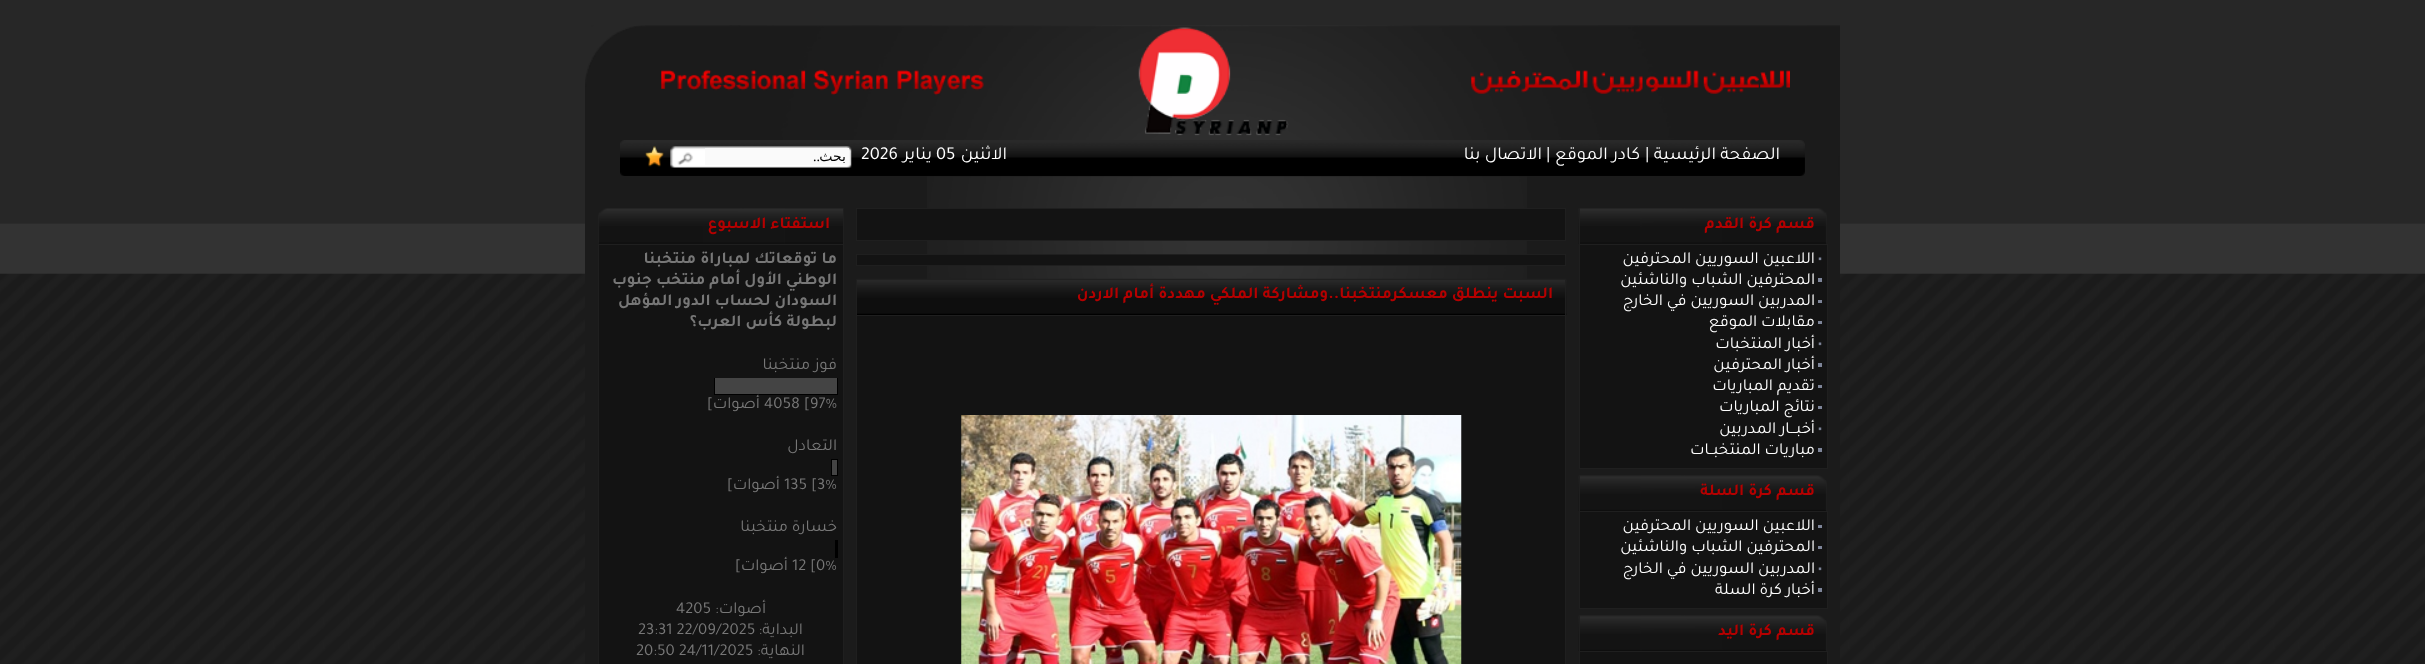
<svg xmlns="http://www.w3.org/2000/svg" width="2425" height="664">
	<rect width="100%" height="100%" fill="#FFFFFF" />
	<image x="0" y="273" width="2425" height="391" href="assets/img1.png" />
	<image x="0" y="0" width="2425" height="274" href="assets/img2.png" />
	<image x="585" y="25" width="1255" height="151" href="assets/img3.png" />
	<image x="1471" y="70" width="319" height="24" href="assets/img4.png" />
	<image x="1138" y="27" width="151" height="109" href="assets/img5.png" />
	<image x="661" y="69" width="323" height="27" href="assets/img6.png" />
	<image x="620" y="140" width="1185" height="36" href="assets/img7.png" />
	<text x="1780" y="159" font-family="Tajawal" font-size="18.25" direction="rtl" fill="#FFFFFF">الصفحة الرئيسية</text>
	<text x="1645" y="159" font-family="Tajawal" font-size="18.25" fill="#FFFFFF">|</text>
	<text x="1640" y="159" font-family="Tajawal" font-size="18.25" direction="rtl" fill="#FFFFFF">كادر الموقع</text>
	<text x="1546" y="159" font-family="Tajawal" font-size="18.25" fill="#FFFFFF">|</text>
	<g font-family="Tajawal" font-size="18.25" direction="rtl" fill="#FFFFFF">
		<text x="1542" y="159">الاتصال بنا</text>
		<text x="1007" y="159">الاثنين</text>
	</g>
	<text x="936" y="159" font-family="Tajawal" font-size="18.25" fill="#FFFFFF">05</text>
	<text x="932" y="159" font-family="Tajawal" font-size="18.25" direction="rtl" fill="#FFFFFF">يناير</text>
	<text x="861" y="159" font-family="Tajawal" font-size="18.25" fill="#FFFFFF">2026</text>
	<image x="670" y="146" width="182" height="22" href="assets/img8.png" />
	<rect x="705" y="148" width="144" height="17" fill="#FAFAFA" />
	<text x="846" y="161" font-family="DejaVu Sans" font-size="14" direction="rtl" fill="#000000">بحث</text>
	<text x="820" y="161" font-family="Liberation Serif" font-size="14" direction="rtl" fill="#000000">..</text>
	<image x="645" y="146" width="19" height="21" href="assets/img9.png" />
	<rect x="585" y="176" width="1255" height="488" fill="#1B1B1B" />
	<image x="927" y="176" width="600" height="103" href="assets/img10.png" />
	<image x="1578" y="208" width="249" height="36" href="assets/img11.png" />
	<rect x="1579" y="208" width="1" height="36" fill="#1F1F1F" />
	<text x="1815" y="228" font-family="Tajawal" font-size="16.7" font-weight="700" direction="rtl" fill="#B50000">قسم كرة القدم</text>
	<rect x="1579.5" y="244.5" width="248" height="224" fill="#131313" stroke="#1F1F1F" />
	<image x="1818" y="257" width="4" height="4" href="assets/img12.png" />
	<text x="1815" y="263" font-family="Tajawal" font-size="16.7" direction="rtl" fill="#FFFFFF">اللاعبين السوريين المحترفين</text>
	<rect x="1818" y="278" width="4" height="4" fill="#7E8599" />
	<text x="1815" y="284" font-family="Tajawal" font-size="16.7" direction="rtl" fill="#FFFFFF">المحترفين الشباب والناشئين</text>
	<rect x="1818" y="300" width="4" height="3" fill="#7E8599" />
	<text x="1815" y="305" font-family="Tajawal" font-size="16.7" direction="rtl" fill="#FFFFFF">المدربين السوريين في الخارج</text>
	<rect x="1818" y="321" width="4" height="3" fill="#7E8599" />
	<text x="1815" y="326" font-family="Tajawal" font-size="16.7" direction="rtl" fill="#FFFFFF">مقابلات الموقع</text>
	<image x="1818" y="342" width="4" height="4" href="assets/img12.png" />
	<text x="1815" y="348" font-family="Tajawal" font-size="16.7" direction="rtl" fill="#FFFFFF">أخبار المنتخبات</text>
	<rect x="1818" y="363" width="4" height="4" fill="#7E8599" />
	<text x="1815" y="369" font-family="Tajawal" font-size="16.7" direction="rtl" fill="#FFFFFF">أخبار المحترفين</text>
	<rect x="1818" y="385" width="4" height="3" fill="#7E8599" />
	<text x="1815" y="390" font-family="Tajawal" font-size="16.7" direction="rtl" fill="#FFFFFF">تقديم المباريات</text>
	<rect x="1818" y="406" width="4" height="3" fill="#7E8599" />
	<text x="1815" y="411" font-family="Tajawal" font-size="16.7" direction="rtl" fill="#FFFFFF">نتائج المباريات</text>
	<image x="1818" y="427" width="4" height="4" href="assets/img12.png" />
	<text x="1815" y="433" font-family="Tajawal" font-size="16.7" direction="rtl" fill="#FFFFFF">أخبـــار المدربين</text>
	<rect x="1818" y="448" width="4" height="4" fill="#7E8599" />
	<text x="1815" y="454" font-family="Tajawal" font-size="16.7" direction="rtl" fill="#FFFFFF">مباريات المنتخبــات</text>
	<image x="1578" y="475" width="249" height="36" href="assets/img13.png" />
	<rect x="1579" y="475" width="1" height="36" fill="#1F1F1F" />
	<text x="1815" y="495" font-family="Tajawal" font-size="16.7" font-weight="700" direction="rtl" fill="#B50000">قسم كرة السلة</text>
	<rect x="1579.5" y="511.5" width="248" height="97" fill="#131313" stroke="#1F1F1F" />
	<rect x="1818" y="525" width="4" height="3" fill="#7E8599" />
	<text x="1815" y="530" font-family="Tajawal" font-size="16.7" direction="rtl" fill="#FFFFFF">اللاعبين السوريين المحترفين</text>
	<rect x="1818" y="546" width="4" height="3" fill="#7E8599" />
	<text x="1815" y="551" font-family="Tajawal" font-size="16.7" direction="rtl" fill="#FFFFFF">المحترفين الشباب والناشئين</text>
	<image x="1818" y="567" width="4" height="4" href="assets/img12.png" />
	<text x="1815" y="573" font-family="Tajawal" font-size="16.7" direction="rtl" fill="#FFFFFF">المدربين السوريين في الخارج</text>
	<rect x="1818" y="588" width="4" height="4" fill="#7E8599" />
	<text x="1815" y="594" font-family="Tajawal" font-size="16.7" direction="rtl" fill="#FFFFFF">أخبار كرة السلة</text>
	<image x="1578" y="615" width="249" height="36" href="assets/img13.png" />
	<rect x="1579" y="615" width="1" height="36" fill="#1F1F1F" />
	<text x="1815" y="635" font-family="Tajawal" font-size="16.7" font-weight="700" direction="rtl" fill="#B50000">قسم كرة اليد</text>
	<rect x="1579.5" y="651.5" width="248" height="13" fill="#131313" stroke="#1F1F1F" />
	<rect x="856.5" y="208.5" width="709" height="32" fill="#131313" stroke="#1F1F1F" />
	<rect x="856.5" y="254.5" width="709" height="11" fill="#131313" stroke="#1F1F1F" />
	<image x="856" y="278" width="711" height="37" href="assets/img14.png" />
	<rect x="1565" y="279" width="1" height="36" fill="#1F1F1F" />
	<rect x="856" y="279" width="1" height="36" fill="#1F1F1F" />
	<text x="1553" y="298" font-family="Tajawal" font-size="16.7" font-weight="700" direction="rtl" fill="#B50000">السبت ينطلق معسكرمنتخبنا..ومشاركة الملكي مهددة أمام الاردن</text>
	<rect x="856.5" y="315.5" width="709" height="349" fill="#131313" stroke="#1F1F1F" />
	<image x="961" y="415" width="501" height="249" href="assets/img15.png" />
	<image x="598" y="208" width="245" height="36" href="assets/img16.png" />
	<rect x="843" y="208" width="1" height="36" fill="#1F1F1F" />
	<text x="830" y="228" font-family="Tajawal" font-size="16.7" font-weight="700" direction="rtl" fill="#B50000">استفتاء الاسبوع</text>
	<rect x="598.5" y="244.5" width="245" height="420" fill="#131313" stroke="#1F1F1F" />
	<g font-family="Tajawal" font-size="16.7" font-weight="700" direction="rtl" fill="#777777">
		<text x="837" y="263">ما توقعاتك لمباراة منتخبنا</text>
		<text x="837" y="284">الوطني الأول أمام منتخب جنوب</text>
		<text x="837" y="305">السودان لحساب الدور المؤهل</text>
		<text x="837" y="326">لبطولة كأس العرب؟</text>
	</g>
	<text x="837" y="369" font-family="Tajawal" font-size="16.7" direction="rtl" fill="#777777">فوز منتخبنا</text>
	<rect x="714.5" y="378.5" width="123" height="16" fill="none" stroke="#000000" />
	<rect x="715" y="378" width="122" height="16" fill="#444444" />
	<text x="764" y="408" font-family="Tajawal" font-size="16.7" fill="#777777">4058 [97%</text>
	<g font-family="Tajawal" font-size="16.7" direction="rtl" fill="#777777">
		<text x="760" y="408">أصوات]</text>
		<text x="837" y="450">التعادل</text>
	</g>
	<rect x="831.5" y="459.5" width="6" height="16" fill="none" stroke="#000000" />
	<rect x="832" y="460" width="5" height="15" fill="#444444" />
	<text x="784" y="489" font-family="Tajawal" font-size="16.7" fill="#777777">135 [3%</text>
	<g font-family="Tajawal" font-size="16.7" direction="rtl" fill="#777777">
		<text x="780" y="489">أصوات]</text>
		<text x="837" y="531">خسارة منتخبنا</text>
	</g>
	<rect x="835" y="540" width="3" height="18" fill="#000000" />
	<text x="792" y="570" font-family="Tajawal" font-size="16.7" fill="#777777">12 [0%</text>
	<g font-family="Tajawal" font-size="16.7" direction="rtl" fill="#777777">
		<text x="788" y="570">أصوات]</text>
		<text x="766" y="613">أصوات:</text>
	</g>
	<text x="676" y="613" font-family="Tajawal" font-size="16.7" fill="#777777">4205</text>
	<text x="803" y="634" font-family="Tajawal" font-size="16.7" direction="rtl" fill="#777777">البداية:</text>
	<text x="638" y="634" font-family="Tajawal" font-size="16.7" fill="#777777">23:31 22/09/2025</text>
	<text x="805" y="655" font-family="Tajawal" font-size="16.7" direction="rtl" fill="#777777">النهاية:</text>
	<text x="636" y="655" font-family="Tajawal" font-size="16.7" fill="#777777">20:50 24/11/2025</text>
</svg>
